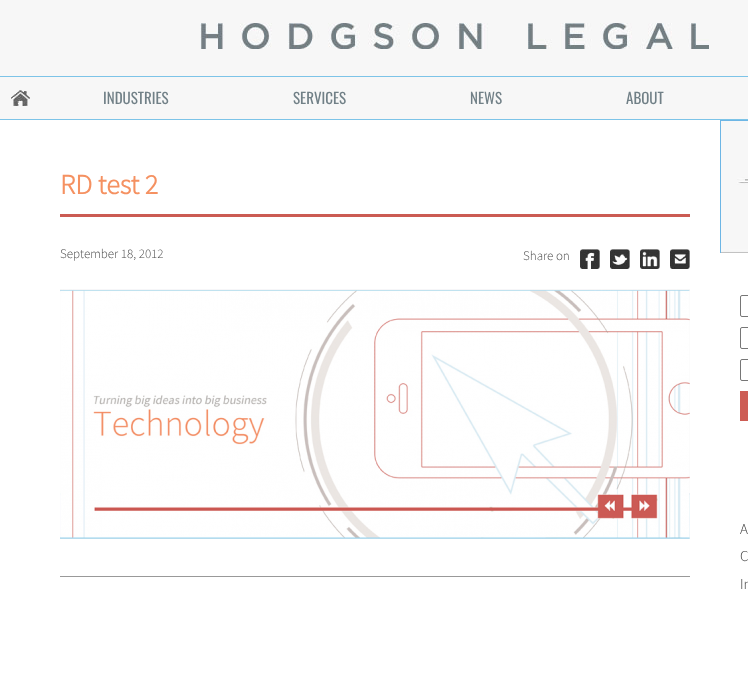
<svg xmlns="http://www.w3.org/2000/svg" width="748" height="679">
	<rect width="100%" height="100%" fill="#FFFFFF" />
	<image x="0" y="0" width="748" height="119" href="assets/img1.png" />
	<image x="200" y="23" width="509" height="26" href="assets/img2.png" />
	<rect x="0" y="76" width="748" height="1" fill="#7DC4E8" />
	<rect x="0" y="119" width="748" height="1" fill="#7DC4E8" />
	<image x="11" y="90" width="19" height="16" href="assets/img3.png" />
	<g font-family="Oswald" font-size="15" fill="#718087">
		<text x="103" y="104">INDUSTRIES</text>
		<text x="293" y="104">SERVICES</text>
		<text x="470" y="104">NEWS</text>
		<text x="626" y="104">ABOUT</text>
	</g>
	<rect x="60" y="576" width="630" height="1" fill="#999999" />
	<rect x="60" y="214" width="630" height="3" fill="#CB5B53" />
	<text x="60" y="194" font-family="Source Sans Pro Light" font-size="28" font-weight="700" fill="#F59161">RD test 2</text>
	<g font-family="Source Sans Pro Light" font-size="13" font-weight="300" fill="#484848">
		<text x="60" y="258">September 18, 2012</text>
		<text x="523" y="260">Share on</text>
	</g>
	<image x="580" y="249" width="20" height="20" href="assets/img4.png" />
	<image x="610" y="249" width="20" height="20" href="assets/img5.png" />
	<image x="640" y="249" width="20" height="20" href="assets/img6.png" />
	<image x="670" y="249" width="20" height="20" href="assets/img7.png" />
	<image x="60" y="289" width="630" height="250" href="assets/img8.png" />
	<image x="721" y="121" width="27" height="132" href="assets/img9.png" />
	<rect x="720" y="120" width="28" height="1" fill="#6DB6E5" />
	<rect x="720" y="120" width="1" height="133" fill="#6DB6E5" />
	<image x="745" y="179" width="3" height="2" href="assets/img10.png" />
	<rect x="740.5" y="295.5" width="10" height="21" rx="1.5" fill="none" stroke="#767676" />
	<rect x="740.5" y="327.5" width="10" height="21" rx="1.5" fill="none" stroke="#767676" />
	<rect x="740.5" y="359.5" width="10" height="21" rx="1.5" fill="none" stroke="#767676" />
	<rect x="740" y="391" width="8" height="30" fill="#CD5C54" />
	<g font-family="Source Sans Pro Light" font-size="15" font-weight="300" fill="#333333">
		<text x="740" y="534">A</text>
		<text x="740" y="561">C</text>
		<text x="740" y="589">In</text>
	</g>
</svg>
